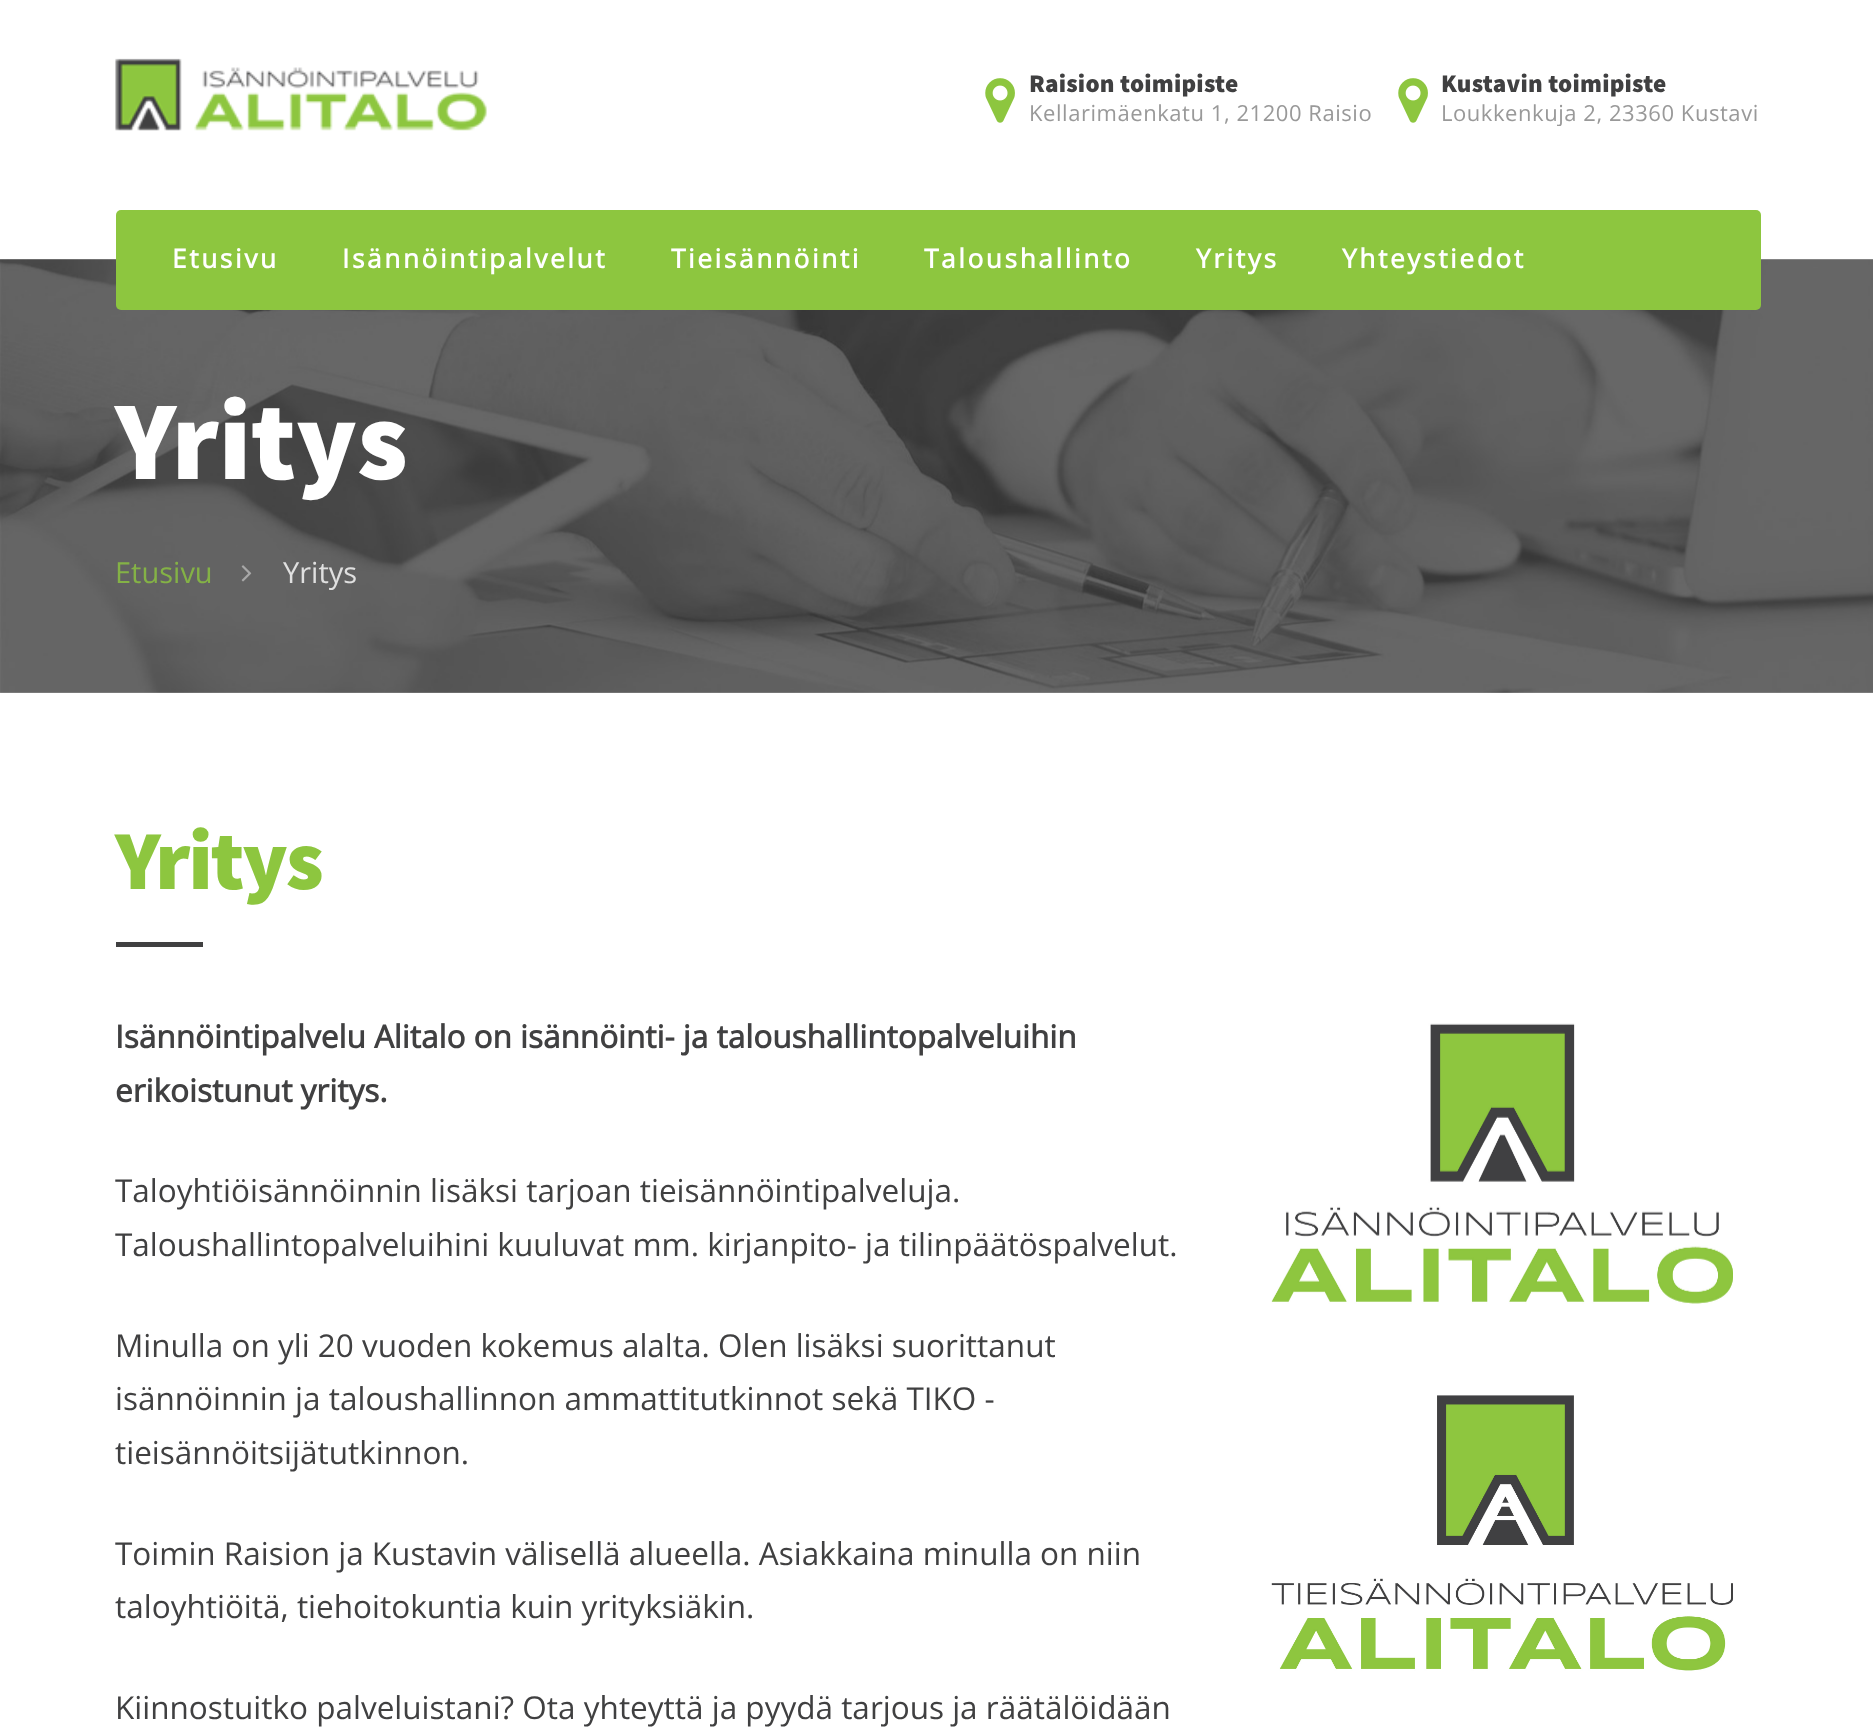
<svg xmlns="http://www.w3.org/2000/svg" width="1873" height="1728">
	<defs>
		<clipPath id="clip1"><rect x="1442" y="67" width="319" height="59" /></clipPath>
	</defs>
	<rect width="100%" height="100%" fill="#FFFFFF" />
	<image x="115" y="58" width="372" height="73" href="assets/img1.png" />
	<image x="985" y="78" width="30" height="45" href="assets/img2.png" />
	<text x="1029" y="92" font-family="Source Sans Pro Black" font-size="25.25" font-weight="900" letter-spacing="0.25" fill="#404041">Raision toimipiste</text>
	<text x="1029" y="121" font-family="Open Sans" font-size="22" letter-spacing="0.55" fill="#999999">Kellarimäenkatu 1, 21200 Raisio</text>
	<image x="1398" y="78" width="30" height="45" href="assets/img2.png" />
	<text x="1441" y="92" font-family="Source Sans Pro Black" font-size="25.25" font-weight="900" letter-spacing="0.25" fill="#404041">Kustavin toimipiste</text>
	<g clip-path="url(#clip1)">
		<text x="1441" y="121" font-family="Open Sans" font-size="22" letter-spacing="0.55" fill="#999999">Loukkenkuja 2, 23360 Kustavi</text>
	</g>
	<image x="0" y="259" width="1873" height="434" href="assets/img3.png" />
	<rect x="116" y="210" width="1645" height="100" rx="5" fill="#8DC63F" />
	<g font-family="Open Sans" font-size="26.25" font-weight="700" letter-spacing="2.6" fill="#FFFFFF">
		<text x="172" y="268">Etusivu</text>
		<text x="342" y="268">Isännöintipalvelut</text>
		<text x="671" y="268">Tieisännöinti</text>
		<text x="924" y="268">Taloushallinto</text>
		<text x="1196" y="268">Yritys</text>
		<text x="1342" y="268">Yhteystiedot</text>
	</g>
	<text x="115" y="479" font-family="Source Sans Pro Black" font-size="112.5" font-weight="900" fill="#FFFFFF">Yritys</text>
	<text x="115" y="583" font-family="Open Sans" font-size="29" fill="#84B246">Etusivu</text>
	<image x="241" y="565" width="11" height="17" href="assets/img4.png" />
	<text x="283" y="583" font-family="Open Sans" font-size="29" fill="#E0E0E0">Yritys</text>
	<text x="115" y="889" font-family="Source Sans Pro Black" font-size="84" font-weight="900" letter-spacing="-2" fill="#8DC63F">Yritys</text>
	<rect x="116" y="942" width="87" height="5" fill="#404041" />
	<g font-family="Open Sans" font-size="31.5" font-weight="700" fill="#404041">
		<text x="115" y="1048">Isännöintipalvelu Alitalo on isännöinti- ja taloushallintopalveluihin</text>
		<text x="115" y="1102">erikoistunut yritys.</text>
	</g>
	<g font-family="Open Sans" font-size="31.5" fill="#404041">
		<text x="115" y="1202">Taloyhtiöisännöinnin lisäksi tarjoan tieisännöintipalveluja.</text>
		<text x="115" y="1256">Taloushallintopalveluihini kuuluvat mm. kirjanpito- ja tilinpäätöspalvelut.</text>
		<text x="115" y="1357">Minulla on yli 20 vuoden kokemus alalta. Olen lisäksi suorittanut</text>
		<text x="115" y="1410">isännöinnin ja taloushallinnon ammattitutkinnot sekä TIKO -</text>
		<text x="115" y="1464">tieisännöitsijätutkinnon.</text>
		<text x="115" y="1565">Toimin Raision ja Kustavin välisellä alueella. Asiakkaina minulla on niin</text>
		<text x="115" y="1618">taloyhtiöitä, tiehoitokuntia kuin yrityksiäkin.</text>
		<text x="115" y="1719">Kiinnostuitko palveluistani? Ota yhteyttä ja pyydä tarjous ja räätälöidään</text>
	</g>
	<image x="1271" y="1023" width="462" height="281" href="assets/img5.png" />
	<image x="1271" y="1395" width="462" height="276" href="assets/img6.png" />
</svg>
